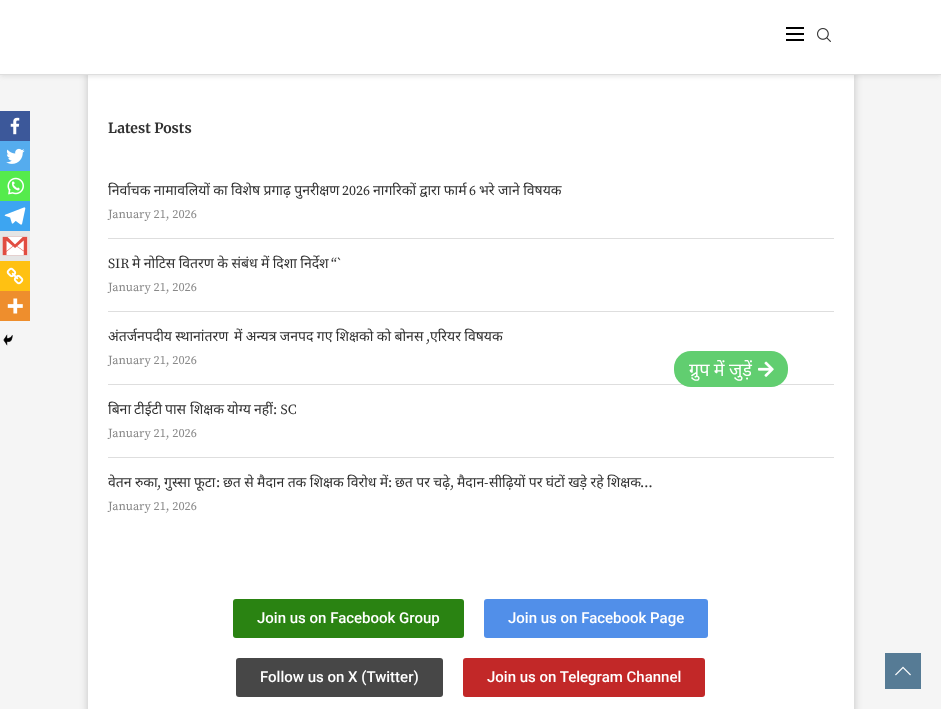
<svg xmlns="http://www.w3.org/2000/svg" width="941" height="709">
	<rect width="100%" height="100%" fill="#F5F5F5" />
	<rect x="88" y="-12" width="766" height="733" fill="#000000" fill-opacity="0.2" filter="blur(4px)" />
	<rect x="88" y="75" width="766" height="634" fill="#FFFFFF" />
	<rect x="0" y="1" width="941" height="75" fill="#BEBEBE" fill-opacity="0.46" filter="blur(2.5px)" />
	<rect x="0" y="0" width="941" height="74" fill="#FFFFFF" />
	<rect x="0" y="74" width="941" height="1" fill="#DEDEDE" />
	<rect x="786" y="27" width="18" height="2" fill="#000000" />
	<rect x="786" y="33" width="18" height="2" fill="#000000" />
	<rect x="786" y="39" width="18" height="2" fill="#000000" />
	<image x="817" y="28" width="14" height="14" href="assets/img1.png" />
	<rect x="0" y="111" width="30" height="30" fill="#3C589A" />
	<image x="10" y="117" width="10" height="18" href="assets/img2.png" />
	<rect x="0" y="141" width="30" height="30" fill="#55ACEE" />
	<image x="6" y="148" width="19" height="16" href="assets/img3.png" />
	<rect x="0" y="171" width="30" height="30" fill="#55EB4C" />
	<image x="7" y="177" width="17" height="18" href="assets/img4.png" />
	<rect x="0" y="201" width="30" height="30" fill="#3DA5F1" />
	<image x="4" y="207" width="22" height="18" href="assets/img5.png" />
	<rect x="0" y="231" width="30" height="30" fill="#E5E5E5" />
	<image x="2" y="236" width="26" height="20" href="assets/img6.png" />
	<rect x="0" y="261" width="30" height="30" fill="#FFC112" />
	<image x="6" y="267" width="18" height="18" href="assets/img7.png" />
	<rect x="0" y="291" width="30" height="30" fill="#EE8E2D" />
	<image x="7" y="298" width="16" height="16" href="assets/img8.png" />
	<image x="3" y="334" width="10" height="12" href="assets/img9.png" />
	<text x="108" y="133" font-family="Merriweather" font-size="14" font-weight="700" fill="#313131">Latest Posts</text>
	<rect x="108" y="238" width="726" height="1" fill="#DEDEDE" />
	<text x="108" y="195" word-spacing="-0.25" font-family="Noto Sans" font-size="14" fill="#313131">निर्वाचक नामावलियों का विशेष प्रगाढ़ पुनरीक्षण</text>
	<text x="342" y="195" font-family="Source Serif Pro" font-size="14" fill="#313131">2026</text>
	<text x="373" y="195" word-spacing="-0.25" font-family="Noto Sans" font-size="14" fill="#313131">नागरिकों द्वारा फार्म</text>
	<text x="469" y="195" font-family="Source Serif Pro" font-size="14" fill="#313131">6</text>
	<text x="479" y="195" word-spacing="-0.25" font-family="Noto Sans" font-size="14" fill="#313131">भरे जाने विषयक</text>
	<text x="108" y="218" font-family="Source Serif Pro" font-size="12.25" fill="#888888">January 21, 2026</text>
	<rect x="108" y="311" width="726" height="1" fill="#DEDEDE" />
	<text x="108" y="268" font-family="Source Serif Pro" font-size="14" fill="#313131">SIR</text>
	<text x="132" y="268" word-spacing="-0.25" font-family="Noto Sans" font-size="14" fill="#313131">मे नोटिस वितरण के संबंध में दिशा निर्देश</text>
	<text x="331" y="268" font-family="Source Serif Pro" font-size="14" fill="#313131">“`</text>
	<text x="108" y="291" font-family="Source Serif Pro" font-size="12.25" fill="#888888">January 21, 2026</text>
	<rect x="108" y="384" width="726" height="1" fill="#DEDEDE" />
	<g font-family="Noto Sans" font-size="14" fill="#313131">
		<text x="108" y="341" word-spacing="-0.25">अंतर्जनपदीय स्थानांतरण</text>
		<text x="234" y="341" word-spacing="-0.25">में अन्यत्र जनपद गए शिक्षको को बोनस</text>
	</g>
	<text x="426" y="341" font-family="Source Serif Pro" font-size="14" fill="#313131">,</text>
	<text x="430" y="341" word-spacing="-0.25" font-family="Noto Sans" font-size="14" fill="#313131">एरियर विषयक</text>
	<text x="108" y="364" font-family="Source Serif Pro" font-size="12.25" fill="#888888">January 21, 2026</text>
	<rect x="108" y="457" width="726" height="1" fill="#DEDEDE" />
	<g font-family="Noto Sans" font-size="14" fill="#313131">
		<text x="108" y="414">बिना</text>
		<text x="134" y="414">टीईटी</text>
		<text x="165" y="414">पास</text>
		<text x="190" y="414">शिक्षक</text>
		<text x="227" y="414">योग्य</text>
		<text x="254" y="414">नहीं</text>
	</g>
	<text x="273" y="414" font-family="Source Serif Pro" font-size="14" fill="#313131">: SC</text>
	<text x="108" y="437" font-family="Source Serif Pro" font-size="12.25" fill="#888888">January 21, 2026</text>
	<text x="108" y="487" word-spacing="-0.25" font-family="Noto Sans" font-size="14" fill="#313131">वेतन रुका</text>
	<text x="157" y="487" font-family="Source Serif Pro" font-size="14" fill="#313131">,</text>
	<text x="164" y="487" word-spacing="-0.25" font-family="Noto Sans" font-size="14" fill="#313131">गुस्सा फूटा</text>
	<text x="216" y="487" font-family="Source Serif Pro" font-size="14" fill="#313131">:</text>
	<text x="223" y="487" word-spacing="-0.25" font-family="Noto Sans" font-size="14" fill="#313131">छत से मैदान तक शिक्षक विरोध में</text>
	<text x="388" y="487" font-family="Source Serif Pro" font-size="14" fill="#313131">:</text>
	<text x="395" y="487" word-spacing="-0.25" font-family="Noto Sans" font-size="14" fill="#313131">छत पर चढ़े</text>
	<text x="450" y="487" font-family="Source Serif Pro" font-size="14" fill="#313131">,</text>
	<text x="457" y="487" font-family="Noto Sans" font-size="14" fill="#313131">मैदान</text>
	<text x="484" y="487" font-family="Source Serif Pro" font-size="14" fill="#313131">-</text>
	<text x="489" y="487" word-spacing="-0.25" font-family="Noto Sans" font-size="14" fill="#313131">सीढ़ियों पर घंटों खड़े रहे शिक्षक</text>
	<text x="640" y="487" font-family="Source Serif Pro" font-size="14" fill="#313131">…</text>
	<text x="108" y="510" font-family="Source Serif Pro" font-size="12.25" fill="#888888">January 21, 2026</text>
	<rect x="674" y="351" width="114" height="36" rx="17" fill="#61CE70" />
	<text x="689" y="376" word-spacing="-0.25" font-family="Noto Sans" font-size="18" fill="#FFFFFF">ग्रुप में जुड़ें</text>
	<image x="758" y="361" width="16" height="16" href="assets/img10.png" />
	<rect x="233" y="599" width="231" height="39" rx="3" fill="#2A8312" />
	<text x="257" y="623" font-family="Roboto" font-size="15" font-weight="500" fill="#FFFFFF">Join us on Facebook Group</text>
	<rect x="484" y="599" width="224" height="39" rx="3" fill="#518FE9" />
	<text x="508" y="623" font-family="Roboto" font-size="15" font-weight="500" fill="#FFFFFF">Join us on Facebook Page</text>
	<rect x="236" y="658" width="207" height="39" rx="3" fill="#474747" />
	<text x="260" y="682" font-family="Roboto" font-size="15" font-weight="500" fill="#FFFFFF">Follow us on X (Twitter)</text>
	<rect x="463" y="658" width="242" height="39" rx="3" fill="#C22828" />
	<text x="487" y="682" font-family="Roboto" font-size="15" font-weight="500" fill="#FFFFFF">Join us on Telegram Channel</text>
	<rect x="885" y="653" width="36" height="36" fill="#567B95" />
	<image x="895" y="666" width="16" height="10" href="assets/img11.png" />
</svg>
